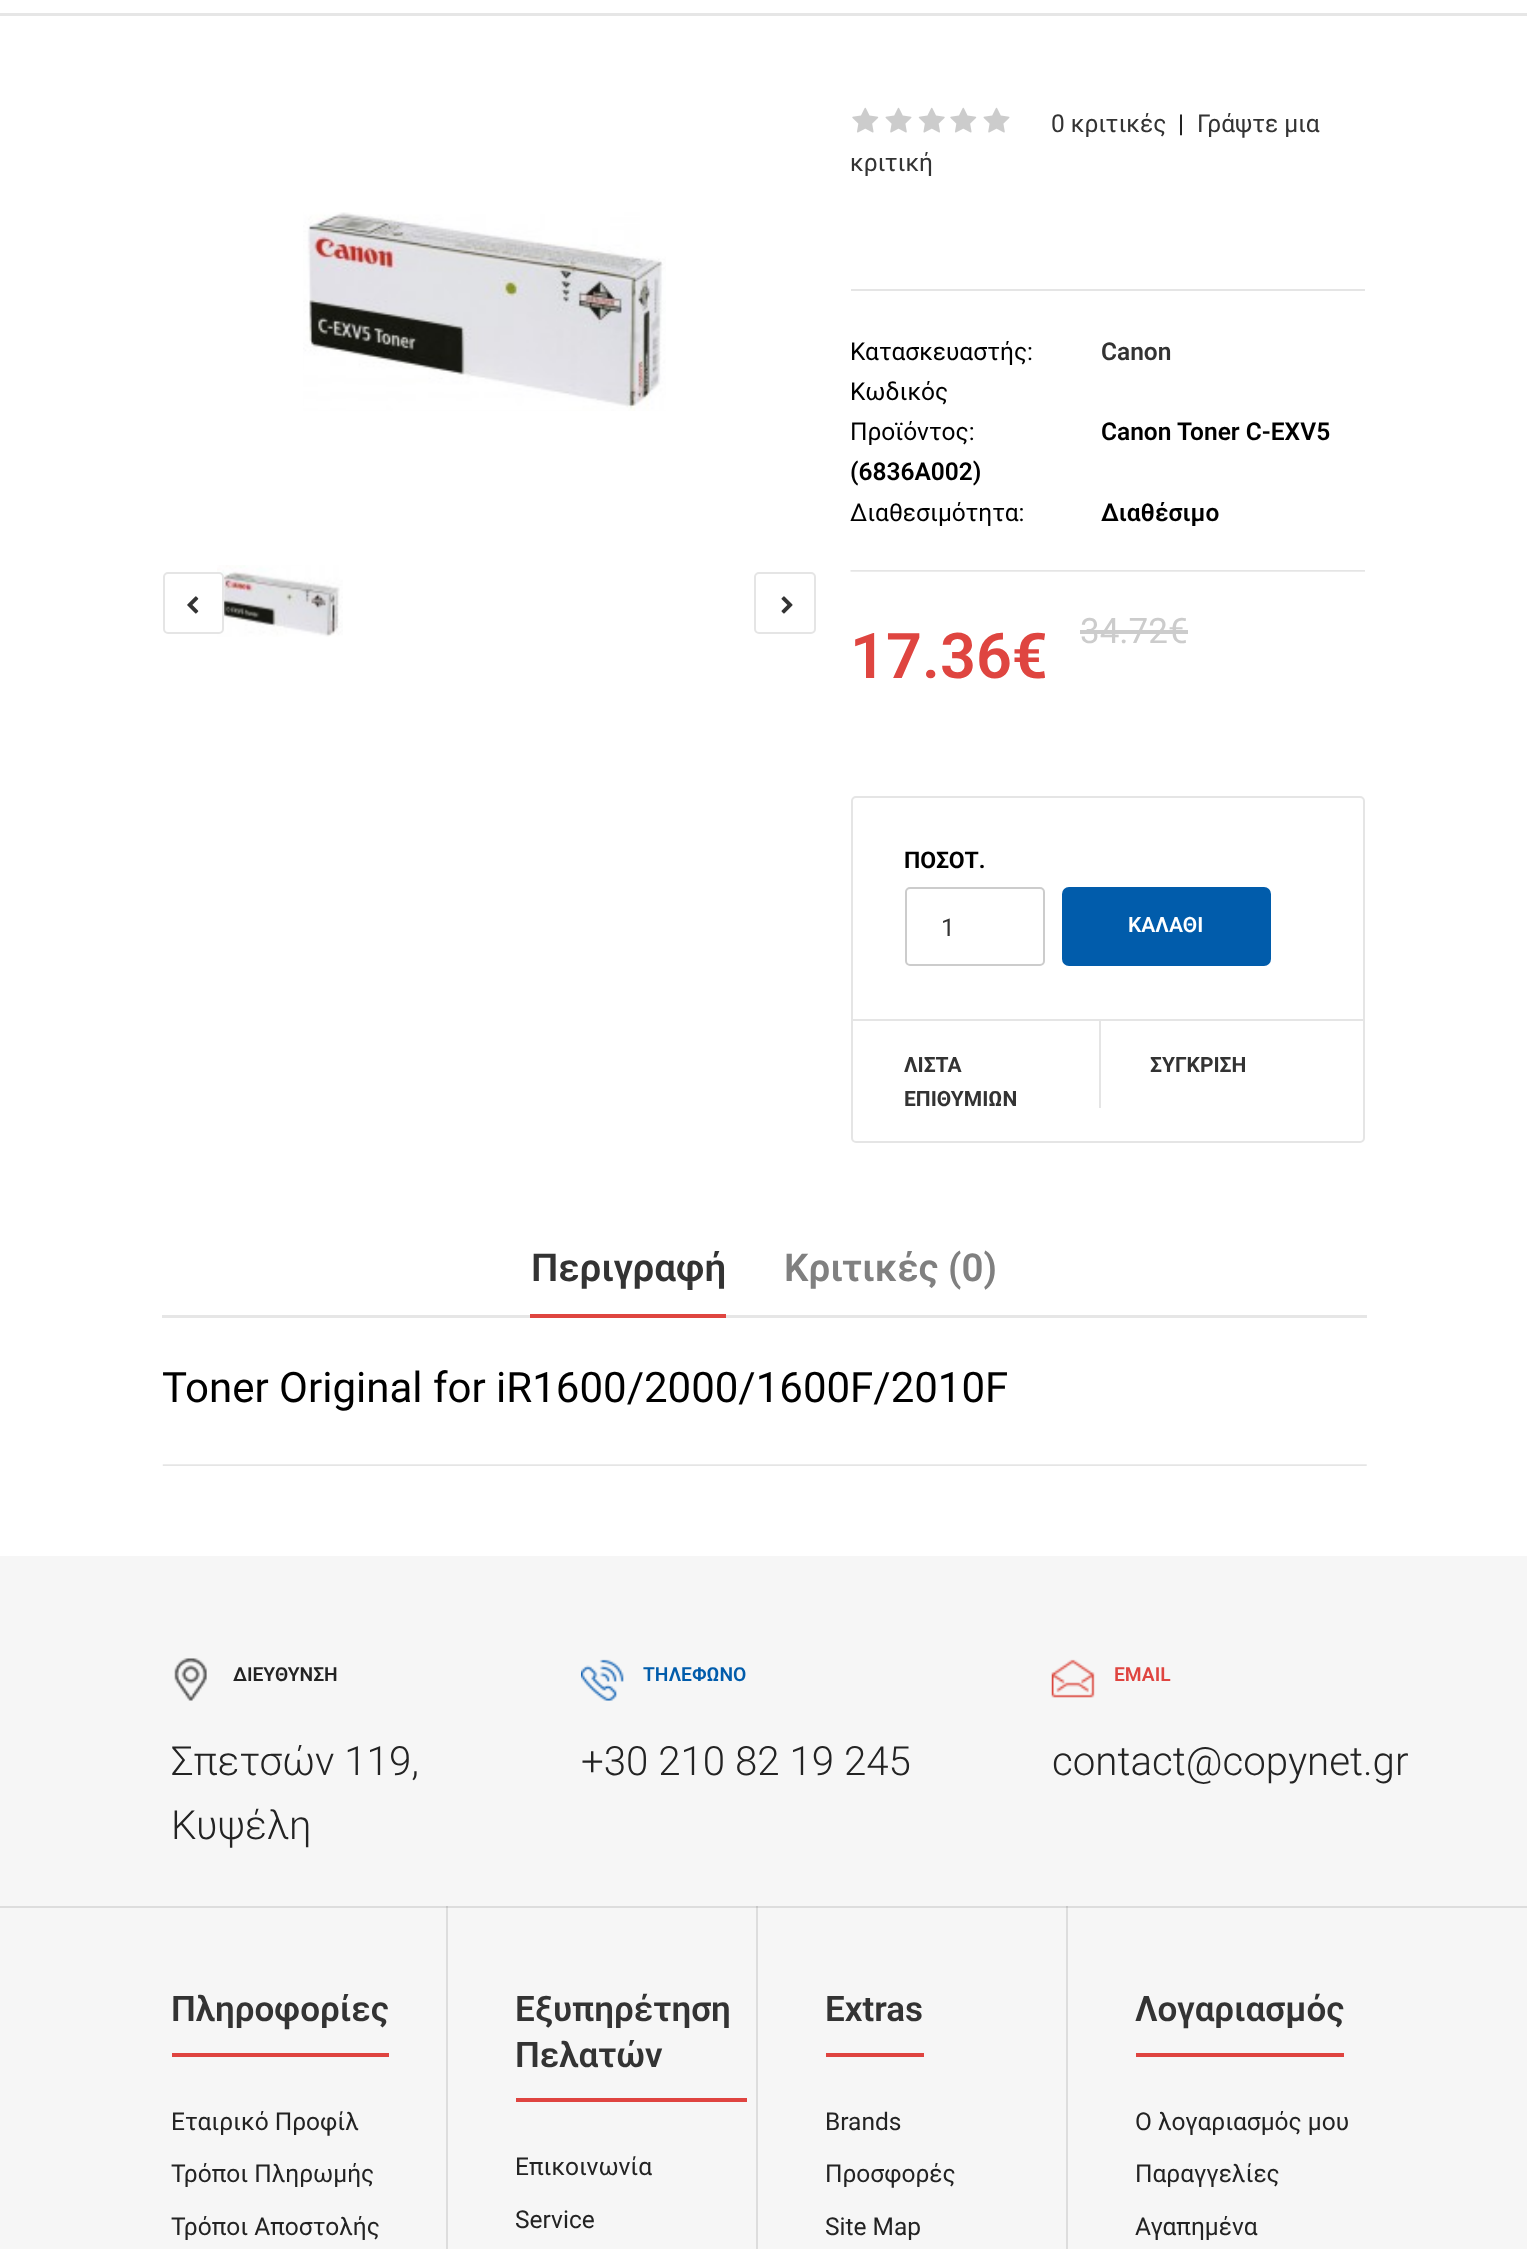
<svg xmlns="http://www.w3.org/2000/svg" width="1527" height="2249">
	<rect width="100%" height="100%" fill="#FFFFFF" />
	<rect x="0" y="13" width="1527" height="3" fill="#E6E6E6" />
	<image x="303" y="212" width="363" height="199" href="assets/img1.png" />
	<image x="217" y="565" width="126" height="72" href="assets/img2.png" />
	<rect x="164" y="573" width="59" height="60" rx="4" fill="#FFFFFF" stroke="#E5E5E5" stroke-width="2" />
	<image x="187" y="596" width="12" height="18" href="assets/img3.png" />
	<rect x="755" y="573" width="60" height="60" rx="4" fill="none" stroke="#E5E5E5" stroke-width="2" />
	<image x="781" y="596" width="12" height="18" href="assets/img4.png" />
	<rect x="851" y="289" width="514" height="2" fill="#E5E5E5" />
	<image x="852" y="107" width="27" height="26" href="assets/img5.png" />
	<image x="885" y="107" width="27" height="26" href="assets/img6.png" />
	<image x="918" y="107" width="27" height="26" href="assets/img7.png" />
	<image x="950" y="107" width="27" height="26" href="assets/img5.png" />
	<image x="983" y="107" width="27" height="26" href="assets/img6.png" />
	<text x="1051" y="132" font-family="Roboto" font-size="24.5" fill="#333333">0 κριτικές</text>
	<text x="1178" y="132" font-family="Roboto" font-size="24.5" fill="#000000">|</text>
	<g font-family="Roboto" font-size="24.5" fill="#333333">
		<text x="1197" y="132">Γράψτε μια</text>
		<text x="850" y="171">κριτική</text>
	</g>
	<image x="850" y="570" width="515" height="2" href="assets/img8.png" />
	<text x="850" y="360" font-family="Roboto" font-size="24.5" fill="#000000">Κατασκευαστής:</text>
	<text x="1101" y="360" font-family="Roboto" font-size="24.5" font-weight="600" fill="#333333">Canon</text>
	<g font-family="Roboto" font-size="24.5" fill="#000000">
		<text x="850" y="400">Κωδικός</text>
		<text x="850" y="440">Προϊόντος:</text>
	</g>
	<g font-family="Roboto" font-size="24.5" font-weight="600" fill="#000000">
		<text x="1101" y="440">Canon Toner C-EXV5</text>
		<text x="850" y="480">(6836A002)</text>
	</g>
	<text x="850" y="521" font-family="Roboto" font-size="24.5" fill="#000000">Διαθεσιμότητα:</text>
	<text x="1101" y="521" font-family="Roboto" font-size="24.5" font-weight="600" fill="#000000">Διαθέσιμο</text>
	<text x="850" y="678" font-family="Roboto" font-size="63" font-weight="600" fill="#DF4540">17.36€</text>
	<text x="1080" y="643" font-family="Roboto" font-size="35" fill="#CCCCCC">34.72€</text>
	<rect x="1080" y="630" width="108" height="4" fill="#CCCCCC" />
	<rect x="852" y="797" width="512" height="345" rx="4" fill="none" stroke="#E5E5E5" stroke-width="2" />
	<text x="904" y="868" font-family="Roboto" font-size="23" font-weight="700" fill="#000000">ΠΟΣΟΤ.</text>
	<rect x="906" y="888" width="138" height="77" rx="4" fill="none" stroke="#CCCCCC" stroke-width="2" />
	<text x="941" y="936" font-family="Roboto" font-size="24.5" fill="#333333">1</text>
	<rect x="1062" y="887" width="209" height="79" rx="7" fill="#015CAB" />
	<text x="1128" y="932" font-family="Roboto" font-size="21" font-weight="600" fill="#FFFFFF">ΚΑΛΑΘΙ</text>
	<rect x="852" y="1019" width="511" height="2" fill="#E5E5E5" />
	<g font-family="Roboto" font-size="21" font-weight="700" fill="#333333">
		<text x="904" y="1072">ΛΙΣΤΑ</text>
		<text x="904" y="1106">ΕΠΙΘΥΜΙΩΝ</text>
	</g>
	<rect x="1099" y="1020" width="2" height="88" fill="#E5E5E5" />
	<text x="1150" y="1072" font-family="Roboto" font-size="21" font-weight="700" fill="#333333">ΣΥΓΚΡΙΣΗ</text>
	<text x="531" y="1281" font-family="Roboto" font-size="38.5" font-weight="600" fill="#333333">Περιγραφή</text>
	<rect x="162" y="1315" width="1205" height="3" fill="#E6E6E6" />
	<rect x="530" y="1314" width="196" height="4" fill="#DF4540" />
	<text x="784" y="1281" font-family="Roboto" font-size="38.5" font-weight="600" fill="#808080">Κριτικές (0)</text>
	<text x="162" y="1402" font-family="Roboto" font-size="42" fill="#000000">Toner Original for iR1600/2000/1600F/2010F</text>
	<image x="162" y="1464" width="1205" height="2" href="assets/img9.png" />
	<rect x="0" y="1556" width="1527" height="693" fill="#F6F6F6" />
	<rect x="1066" y="1906" width="2" height="343" fill="#DDDDDD" />
	<rect x="756" y="1906" width="2" height="343" fill="#DDDDDD" />
	<rect x="446" y="1906" width="2" height="343" fill="#DDDDDD" />
	<image x="174" y="1658" width="33" height="43" href="assets/img10.png" />
	<text x="233" y="1681" font-family="Roboto" font-size="19.25" font-weight="600" fill="#232323">ΔΙΕΥΘΥΝΣΗ</text>
	<g font-family="Roboto" font-size="40.25" font-weight="300" fill="#232323">
		<text x="171" y="1775">Σπετσών 119,</text>
		<text x="171" y="1839">Κυψέλη</text>
	</g>
	<image x="581" y="1659" width="43" height="42" href="assets/img11.png" />
	<text x="643" y="1681" font-family="Roboto" font-size="19.25" font-weight="600" fill="#015CAB">ΤΗΛΕΦΩΝΟ</text>
	<text x="581" y="1775" font-family="Roboto" font-size="40.25" font-weight="300" fill="#232323">+30 210 82 19 245</text>
	<image x="1051" y="1659" width="44" height="39" href="assets/img12.png" />
	<text x="1114" y="1681" font-family="Roboto" font-size="19.25" font-weight="600" fill="#DF4540">EMAIL</text>
	<text x="1052" y="1775" font-family="Roboto" font-size="40.25" font-weight="300" fill="#232323">contact@copynet.gr</text>
	<rect x="0" y="1906" width="1527" height="2" fill="#DDDDDD" />
	<rect x="1066" y="1906" width="2" height="2" fill="#C7C7C7" />
	<rect x="756" y="1906" width="2" height="2" fill="#C7C7C7" />
	<rect x="446" y="1906" width="2" height="2" fill="#C7C7C7" />
	<rect x="172" y="2053" width="217" height="4" fill="#DF4440" />
	<text x="171" y="2021" font-family="Roboto" font-size="35" font-weight="600" fill="#333333">Πληροφορίες</text>
	<g font-family="Roboto" font-size="24.5" fill="#232323">
		<text x="171" y="2130">Εταιρικό Προφίλ</text>
		<text x="171" y="2182">Τρόποι Πληρωμής</text>
		<text x="171" y="2235">Τρόποι Αποστολής</text>
	</g>
	<rect x="516" y="2098" width="231" height="4" fill="#DF4440" />
	<g font-family="Roboto" font-size="35" font-weight="600" fill="#333333">
		<text x="515" y="2021">Εξυπηρέτηση</text>
		<text x="515" y="2067">Πελατών</text>
	</g>
	<g font-family="Roboto" font-size="24.5" fill="#232323">
		<text x="515" y="2175">Επικοινωνία</text>
		<text x="515" y="2228">Service</text>
	</g>
	<rect x="826" y="2053" width="98" height="4" fill="#DF4440" />
	<text x="825" y="2021" font-family="Roboto" font-size="35" font-weight="600" fill="#333333">Extras</text>
	<g font-family="Roboto" font-size="24.5" fill="#232323">
		<text x="825" y="2130">Brands</text>
		<text x="825" y="2182">Προσφορές</text>
		<text x="825" y="2235">Site Map</text>
	</g>
	<rect x="1136" y="2053" width="208" height="4" fill="#DF4440" />
	<text x="1135" y="2021" font-family="Roboto" font-size="35" font-weight="600" fill="#333333">Λογαριασμός</text>
	<g font-family="Roboto" font-size="24.5" fill="#232323">
		<text x="1135" y="2130">Ο λογαριασμός μου</text>
		<text x="1135" y="2182">Παραγγελίες</text>
		<text x="1135" y="2235">Αγαπημένα</text>
	</g>
</svg>
